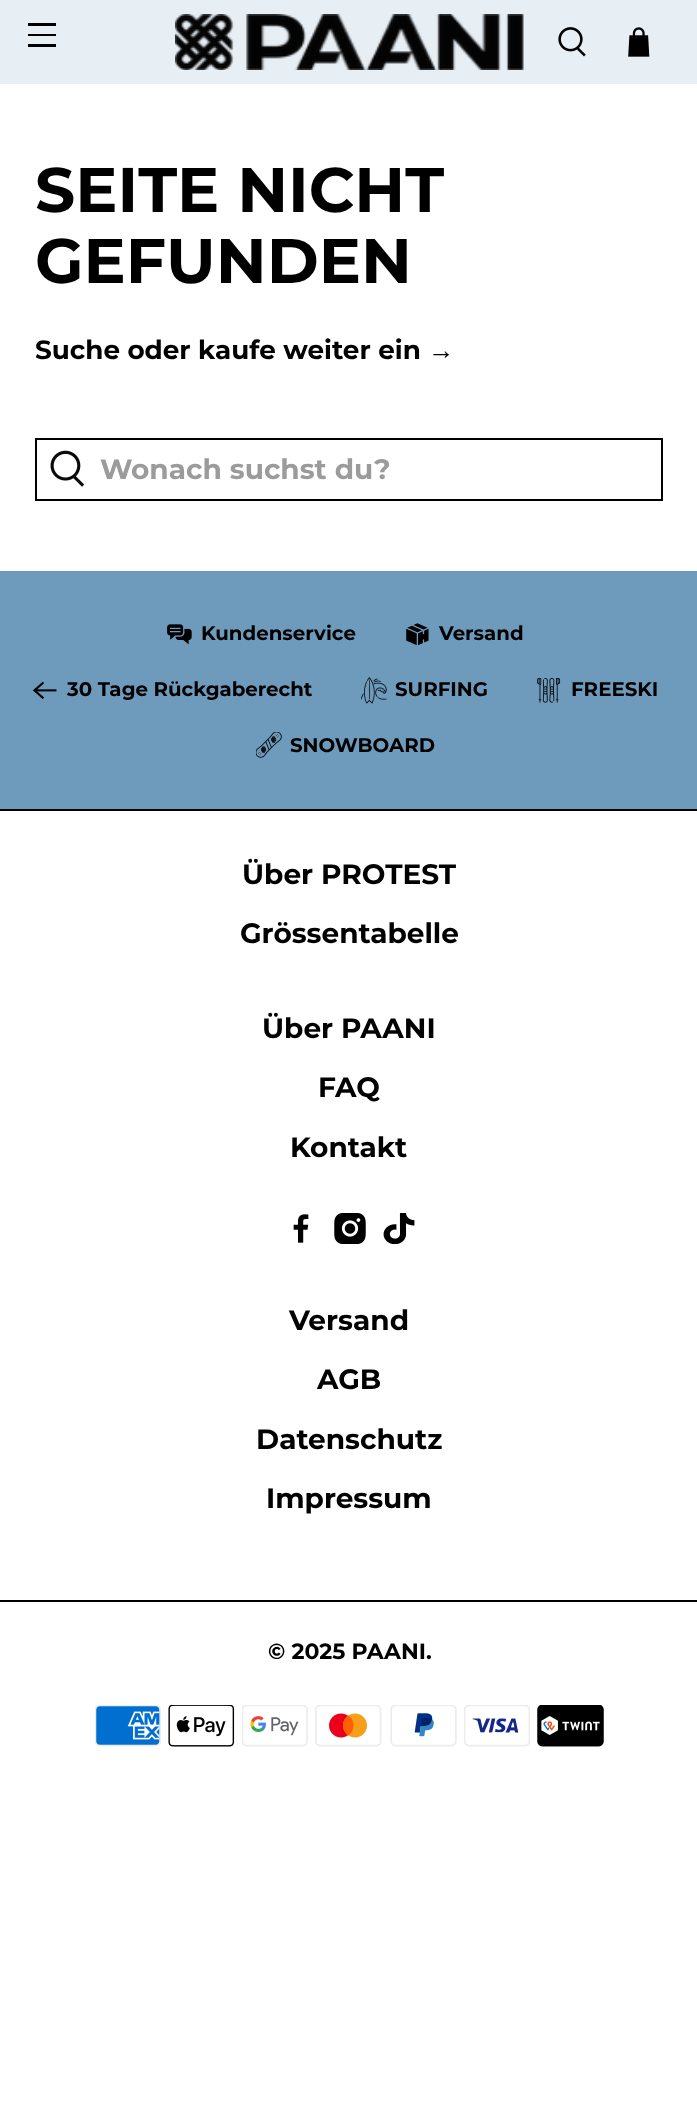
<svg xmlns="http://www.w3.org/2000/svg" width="697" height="2102">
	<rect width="100%" height="100%" fill="#FFFFFF" />
	<rect x="0" y="0" width="697" height="84" fill="#E7EEF4" />
	<rect x="28" y="23" width="28" height="3" fill="#000000" />
	<rect x="28" y="34" width="28" height="2" fill="#000000" />
	<rect x="28" y="44" width="28" height="3" fill="#000000" />
	<image x="175" y="14" width="349" height="56" href="assets/img1.png" />
	<image x="558" y="27" width="28" height="30" href="assets/img2.png" />
	<image x="628" y="27" width="22" height="30" href="assets/img3.png" />
	<g font-family="Montserrat" font-size="63" font-weight="700" fill="#000000">
		<text x="35" y="212">SEITE NICHT</text>
		<text x="35" y="283">GEFUNDEN</text>
	</g>
	<text x="35" y="359" font-family="Montserrat" font-size="26.25" font-weight="700" fill="#000000">Suche oder kaufe weiter ein</text>
	<text x="428" y="359" font-family="Liberation Sans" font-size="26.25" fill="#000000">→</text>
	<rect x="36" y="439" width="626" height="61" fill="none" stroke="#000000" stroke-width="2" />
	<image x="50" y="450" width="35" height="37" href="assets/img4.png" />
	<text x="100" y="479" font-family="Montserrat" font-size="28" font-weight="700" fill="#9B9B9B">Wonach suchst du?</text>
	<rect x="0" y="571" width="697" height="238" fill="#6E9BBC" />
	<image x="167" y="624" width="25" height="21" href="assets/img5.png" />
	<text x="201" y="640" font-family="Montserrat" font-size="19.75" font-weight="700" fill="#000000">Kundenservice</text>
	<image x="406" y="623" width="23" height="23" href="assets/img6.png" />
	<text x="439" y="640" font-family="Montserrat" font-size="19.75" font-weight="700" fill="#000000">Versand</text>
	<image x="32" y="681" width="25" height="18" href="assets/img7.png" />
	<text x="67" y="696" font-family="Montserrat" font-size="19.75" font-weight="700" fill="#000000">30 Tage Rückgaberecht</text>
	<image x="361" y="677" width="26" height="27" href="assets/img8.png" />
	<text x="395" y="696" font-family="Montserrat" font-size="19.75" font-weight="700" fill="#000000">SURFING</text>
	<image x="537" y="678" width="24" height="25" href="assets/img9.png" />
	<text x="571" y="696" font-family="Montserrat" font-size="19.75" font-weight="700" fill="#000000">FREESKI</text>
	<image x="256" y="732" width="26" height="26" href="assets/img10.png" />
	<text x="290" y="752" font-family="Montserrat" font-size="19.75" font-weight="700" fill="#000000">SNOWBOARD</text>
	<rect x="0" y="809" width="697" height="2" fill="#000000" />
	<rect x="0" y="1600" width="697" height="2" fill="#000000" />
	<g font-family="Montserrat" font-size="28" font-weight="700" fill="#000000">
		<text x="242" y="884">Über PROTEST</text>
		<text x="240" y="943">Grössentabelle</text>
		<text x="262" y="1038">Über PAANI</text>
		<text x="318" y="1097">FAQ</text>
		<text x="290" y="1157">Kontakt</text>
	</g>
	<image x="293" y="1214" width="16" height="29" href="assets/img11.png" />
	<image x="334" y="1213" width="32" height="31" href="assets/img12.png" />
	<image x="383" y="1213" width="32" height="31" href="assets/img13.png" />
	<g font-family="Montserrat" font-size="28" font-weight="700" fill="#000000">
		<text x="289" y="1330">Versand</text>
		<text x="317" y="1389">AGB</text>
		<text x="256" y="1449">Datenschutz</text>
		<text x="266" y="1508">Impressum</text>
	</g>
	<text x="268" y="1659" font-family="Montserrat" font-size="22" font-weight="700" fill="#000000">© 2025 PAANI.</text>
	<image x="95" y="1705" width="66" height="42" href="assets/img14.png" />
	<image x="168" y="1705" width="67" height="42" href="assets/img15.png" />
	<image x="242" y="1705" width="66" height="42" href="assets/img16.png" />
	<image x="315" y="1705" width="67" height="42" href="assets/img17.png" />
	<image x="390" y="1705" width="67" height="42" href="assets/img18.png" />
	<image x="464" y="1705" width="66" height="42" href="assets/img19.png" />
	<image x="537" y="1705" width="67" height="42" href="assets/img20.png" />
</svg>
